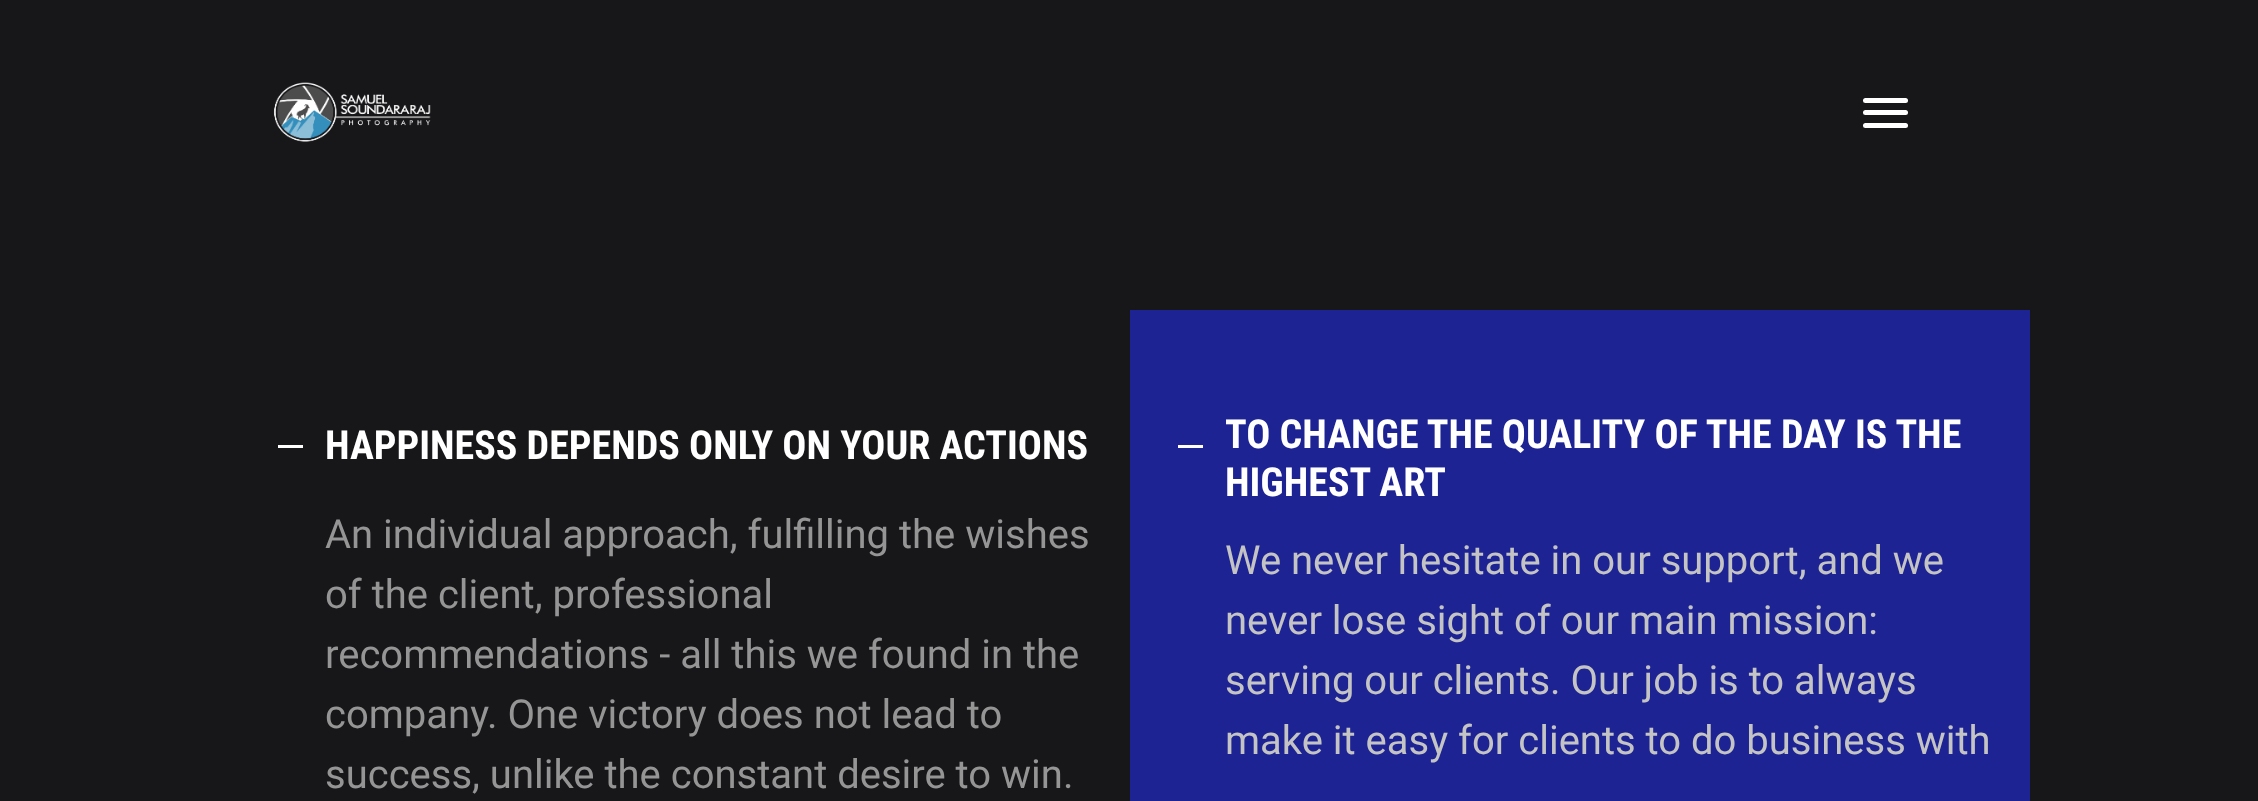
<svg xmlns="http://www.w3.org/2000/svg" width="2258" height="801">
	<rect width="100%" height="100%" fill="#17171A" />
	<image x="273" y="82" width="158" height="60" href="assets/img1.png" />
	<rect x="1863" y="98" width="45" height="5" rx="2.5" fill="#FFFFFF" />
	<rect x="1863" y="110" width="45" height="5" rx="2.5" fill="#FFFFFF" />
	<rect x="1863" y="123" width="45" height="5" rx="2.5" fill="#FFFFFF" />
	<rect x="278" y="445" width="25" height="3" fill="#FFFFFF" />
	<text x="325" y="459" font-family="Roboto Condensed" font-size="40" font-weight="700" fill="#FFFFFF">HAPPINESS DEPENDS ONLY ON YOUR ACTIONS</text>
	<g font-family="Roboto" font-size="40" fill="#959595">
		<text x="325" y="548">An individual approach, fulfilling the wishes</text>
		<text x="325" y="608">of the client, professional</text>
		<text x="325" y="668">recommendations - all this we found in the</text>
		<text x="325" y="728">company. One victory does not lead to</text>
		<text x="325" y="788">success, unlike the constant desire to win.</text>
	</g>
	<rect x="1130" y="310" width="900" height="491" fill="#1E2394" />
	<rect x="1178" y="445" width="25" height="3" fill="#FFFFFF" />
	<g font-family="Roboto Condensed" font-size="40" font-weight="700" fill="#FFFFFF">
		<text x="1225" y="448">TO CHANGE THE QUALITY OF THE DAY IS THE</text>
		<text x="1225" y="496">HIGHEST ART</text>
	</g>
	<g font-family="Roboto" font-size="40" fill="#C4C4C4">
		<text x="1225" y="574">We never hesitate in our support, and we</text>
		<text x="1225" y="634">never lose sight of our main mission:</text>
		<text x="1225" y="694">serving our clients. Our job is to always</text>
		<text x="1225" y="754">make it easy for clients to do business with</text>
	</g>
</svg>
